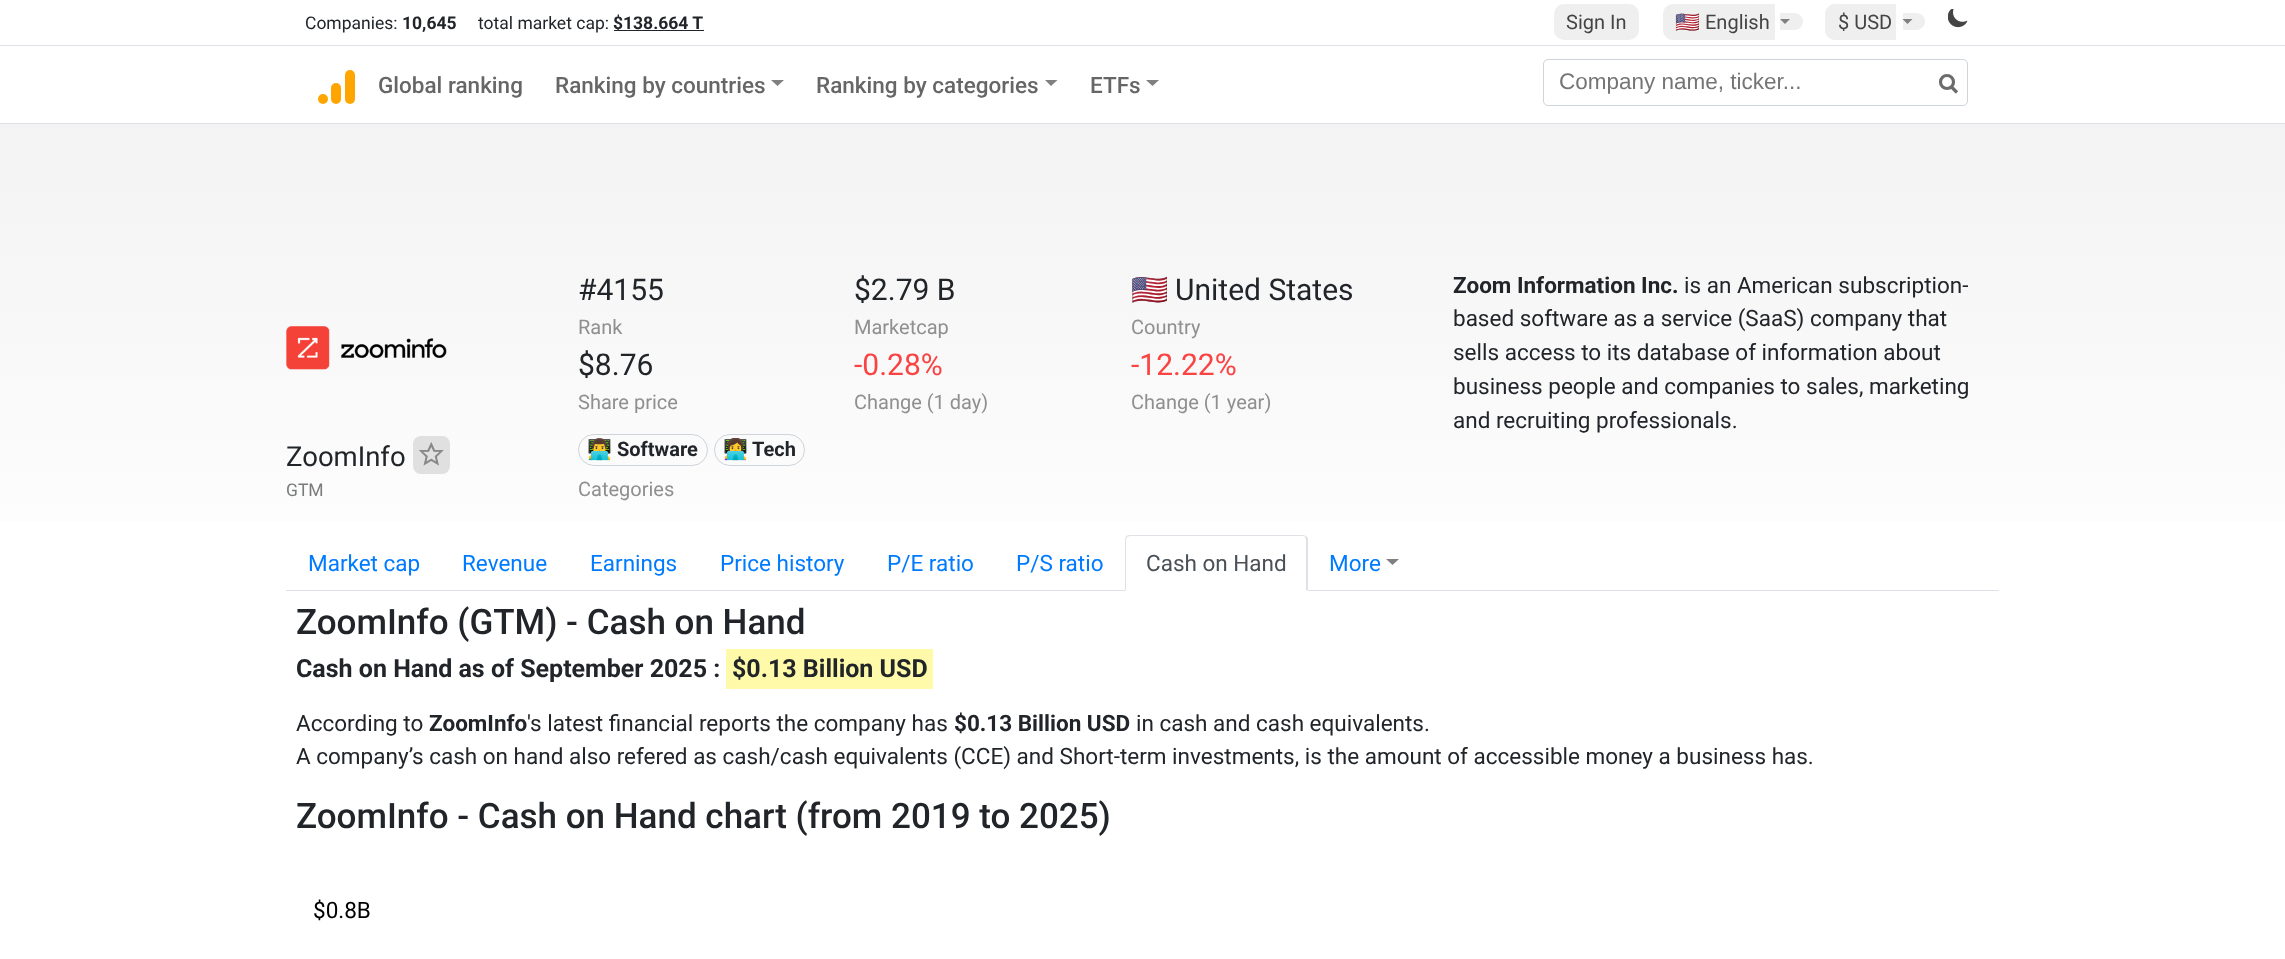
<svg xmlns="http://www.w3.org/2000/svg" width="2285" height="959">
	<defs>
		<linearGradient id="g1" gradientUnits="userSpaceOnUse" x1="1143" y1="625" x2="1143" y2="0"><stop offset="0" stop-color="#FFFFFF" /><stop offset="1" stop-color="#F0F0F0" /></linearGradient>
	</defs>
	<rect width="100%" height="100%" fill="#FFFFFF" />
	<rect x="0" y="124" width="2285" height="397" fill="url(#g1)" />
	<text x="305" y="29" font-family="Roboto" font-size="17.5" fill="#212529">Companies:</text>
	<text x="402" y="29" font-family="Roboto" font-size="17.5" font-weight="700" fill="#212529">10,645</text>
	<text x="478" y="29" font-family="Roboto" font-size="17.5" fill="#212529">total market cap:</text>
	<rect x="614" y="30" width="90" height="1" fill="#212529" />
	<text x="613" y="29" font-family="Roboto" font-size="17.5" font-weight="700" fill="#212529">$138.664 T</text>
	<rect x="1554" y="4" width="85" height="36" rx="10" fill="#EFEFEF" />
	<text x="1566" y="29" font-family="Roboto" font-size="20" fill="#444444">Sign In</text>
	<path d="M1673 4H1705V40H1673C1667.5 40 1663 35.5 1663 30V14C1663 8.5 1667.5 4 1673 4Z" fill="#EFEFEF" />
	<rect x="1705" y="4" width="70" height="36" fill="#EFEFEF" />
	<path d="M1780 13H1794.5C1799 13 1803 17 1803 21.5C1803 26 1799 30 1794.5 30H1780Z" fill="#EFEFEF" />
	<text x="1675" y="29" font-family="Noto Color Emoji" font-size="20" fill="#444444">🇺🇸</text>
	<text x="1705" y="29" font-family="Roboto" font-size="20" fill="#444444">English</text>
	<path d="M1780 19H1790L1785 24Z" fill="#808080" />
	<path d="M1835 4H1896V40H1835C1829.5 40 1825 35.5 1825 30V14C1825 8.5 1829.5 4 1835 4Z" fill="#EFEFEF" />
	<path d="M1903 13H1916.5C1921 13 1925 17 1925 21.5C1925 26 1921 30 1916.5 30H1903Z" fill="#EFEFEF" />
	<text x="1838" y="29" font-family="Roboto" font-size="20" fill="#444444">$ USD</text>
	<path d="M1902.5 19H1912.5L1907.5 24Z" fill="#808080" />
	<image x="1948" y="9" width="20" height="19" href="assets/img1.png" />
	<rect x="0" y="45" width="2285" height="1" fill="#DEE2E6" />
	<rect x="0" y="123" width="2285" height="1" fill="#DEE2E6" />
	<circle cx="323" cy="99" r="5" fill="#FFA500" />
	<rect x="331" y="83" width="10" height="21" rx="5" fill="#FFA500" />
	<rect x="345" y="70" width="10" height="34" rx="5" fill="#FFA500" />
	<g font-family="Roboto" font-size="22.5" font-weight="500" fill="#666666">
		<text x="378" y="93">Global ranking</text>
		<text x="555" y="93">Ranking by countries</text>
	</g>
	<path d="M771 80H784L777.5 86Z" fill="#808080" />
	<text x="816" y="93" font-family="Roboto" font-size="22.5" font-weight="500" fill="#666666">Ranking by categories</text>
	<path d="M1045 80H1057.5L1051 86Z" fill="#808080" />
	<text x="1090" y="93" font-family="Roboto" font-size="22.5" font-weight="500" fill="#666666">ETFs</text>
	<path d="M1146 80H1159L1152.5 86Z" fill="#808080" />
	<rect x="1543.5" y="59.5" width="424" height="46" rx="4.5" fill="none" stroke="#CED4DA" />
	<text x="1559" y="89" font-family="Liberation Sans" font-size="22.5" fill="#757575">Company name, ticker...</text>
	<path d="M1957 92.5L1950.5 86" fill="none" stroke="#6C6C6C" stroke-width="3.2" />
	<circle cx="1947" cy="82" r="6.5" fill="none" stroke="#6C6C6C" stroke-width="3.2" />
	<text x="578" y="300" font-family="Roboto" font-size="30" fill="#212529">#4155</text>
	<text x="578" y="334" font-family="Roboto" font-size="20" fill="#8F8F8F">Rank</text>
	<text x="854" y="300" font-family="Roboto" font-size="30" fill="#212529">$2.79 B</text>
	<text x="854" y="334" font-family="Roboto" font-size="20" fill="#8F8F8F">Marketcap</text>
	<text x="1131" y="300" font-family="Noto Color Emoji" font-size="30" fill="#212529">🇺🇸</text>
	<text x="1175" y="300" font-family="Roboto" font-size="30" fill="#212529">United States</text>
	<text x="1131" y="334" font-family="Roboto" font-size="20" fill="#8F8F8F">Country</text>
	<text x="578" y="375" font-family="Roboto" font-size="30" fill="#212529">$8.76</text>
	<text x="578" y="409" font-family="Roboto" font-size="20" fill="#8F8F8F">Share price</text>
	<text x="854" y="375" font-family="Roboto" font-size="30" fill="#FA4444">-0.28%</text>
	<text x="854" y="409" font-family="Roboto" font-size="20" fill="#8F8F8F">Change (1 day)</text>
	<text x="1131" y="375" font-family="Roboto" font-size="30" fill="#FA4444">-12.22%</text>
	<text x="1131" y="409" font-family="Roboto" font-size="20" fill="#8F8F8F">Change (1 year)</text>
	<rect x="578.5" y="434.5" width="129" height="31" rx="15.5" fill="none" stroke="#CED4DA" />
	<text x="587" y="456" font-family="Noto Color Emoji" font-size="20" font-weight="700" fill="#212529">👨‍💻</text>
	<text x="617" y="456" font-family="Roboto" font-size="20" font-weight="700" fill="#212529">Software</text>
	<rect x="714.5" y="434.5" width="90" height="31" rx="15.5" fill="none" stroke="#CED4DA" />
	<text x="723" y="456" font-family="Noto Color Emoji" font-size="20" font-weight="700" fill="#212529">👩‍💻</text>
	<text x="752" y="456" font-family="Roboto" font-size="20" font-weight="700" fill="#212529">Tech</text>
	<text x="578" y="496" font-family="Roboto" font-size="20" fill="#8F8F8F">Categories</text>
	<text x="1453" y="293" font-family="Roboto" font-size="22.5" font-weight="700" fill="#212529">Zoom Information Inc.</text>
	<g font-family="Roboto" font-size="22.5" fill="#212529">
		<text x="1684" y="293">is an American subscription-</text>
		<text x="1453" y="326">based software as a service (SaaS) company that</text>
		<text x="1453" y="360">sells access to its database of information about</text>
		<text x="1453" y="394">business people and companies to sales, marketing</text>
		<text x="1453" y="428">and recruiting professionals.</text>
	</g>
	<image x="286" y="326" width="161" height="44" href="assets/img2.png" />
	<text x="286" y="466" font-family="Roboto" font-size="27.5" fill="#212529">ZoomInfo</text>
	<rect x="413" y="436" width="37" height="38" rx="8" fill="#E0E0E0" />
	<image x="419" y="442" width="25" height="24" href="assets/img3.png" />
	<text x="286" y="496" font-family="Roboto" font-size="17.5" fill="#797B7D">GTM</text>
	<rect x="286" y="590" width="1713" height="1" fill="#DEE2E6" />
	<g font-family="Roboto" font-size="22.5" fill="#007BFF">
		<text x="308" y="571">Market cap</text>
		<text x="462" y="571">Revenue</text>
		<text x="590" y="571">Earnings</text>
		<text x="720" y="571">Price history</text>
		<text x="887" y="571">P/E ratio</text>
		<text x="1016" y="571">P/S ratio</text>
	</g>
	<path d="M1130 535H1303C1306 535 1308 537 1308 540V591H1125V540C1125 537 1127 535 1130 535Z" fill="#FFFFFF" />
	<path d="M1130 535C1128 535 1127 536 1126 536L1127 537L1130 536H1273H1304L1305 537L1306 536C1305 536 1304 535 1302 535Z" fill="#DEE2E6" />
	<path d="M1308 591L1306 590V540L1305 537L1306 536L1308 538Z" fill="#DEE2E6" />
	<path d="M1307 591H1125L1126 590H1306Z" fill="#FFFFFF" />
	<path d="M1125 540V591L1126 590V540L1127 537L1126 536C1126 537 1125 538 1125 540Z" fill="#DEE2E6" />
	<text x="1146" y="571" font-family="Roboto" font-size="22.5" fill="#495057">Cash on Hand</text>
	<text x="1329" y="571" font-family="Roboto" font-size="22.5" fill="#007BFF">More</text>
	<path d="M1386 559H1399L1392.5 565Z" fill="#808080" />
	<text x="296" y="634" font-family="Roboto" font-size="35" font-weight="500" fill="#212529">ZoomInfo (GTM) - Cash on Hand</text>
	<text x="296" y="677" font-family="Roboto" font-size="25" font-weight="700" fill="#212529">Cash on Hand as of September 2025 :</text>
	<rect x="726" y="649" width="207" height="40" fill="#FFFAAA" />
	<text x="732" y="677" font-family="Roboto" font-size="25" font-weight="700" fill="#212529">$0.13 Billion USD</text>
	<text x="296" y="731" font-family="Roboto" font-size="22.5" fill="#212529">According to</text>
	<text x="429" y="731" font-family="Roboto" font-size="22.5" font-weight="700" fill="#212529">ZoomInfo</text>
	<text x="527" y="731" font-family="Roboto" font-size="22.5" fill="#212529">'s latest financial reports the company has</text>
	<text x="954" y="731" font-family="Roboto" font-size="22.5" font-weight="700" fill="#212529">$0.13 Billion USD</text>
	<g font-family="Roboto" font-size="22.5" fill="#212529">
		<text x="1136" y="731">in cash and cash equivalents.</text>
		<text x="296" y="764">A company’s cash on hand also refered as cash/cash equivalents (CCE) and Short-term investments, is the amount of accessible money a business has.</text>
	</g>
	<text x="296" y="828" font-family="Roboto" font-size="35" font-weight="500" fill="#212529">ZoomInfo - Cash on Hand chart (from 2019 to 2025)</text>
	<text x="313" y="918" font-family="Roboto" font-size="22.5" fill="#000000">$0.8B</text>
</svg>
